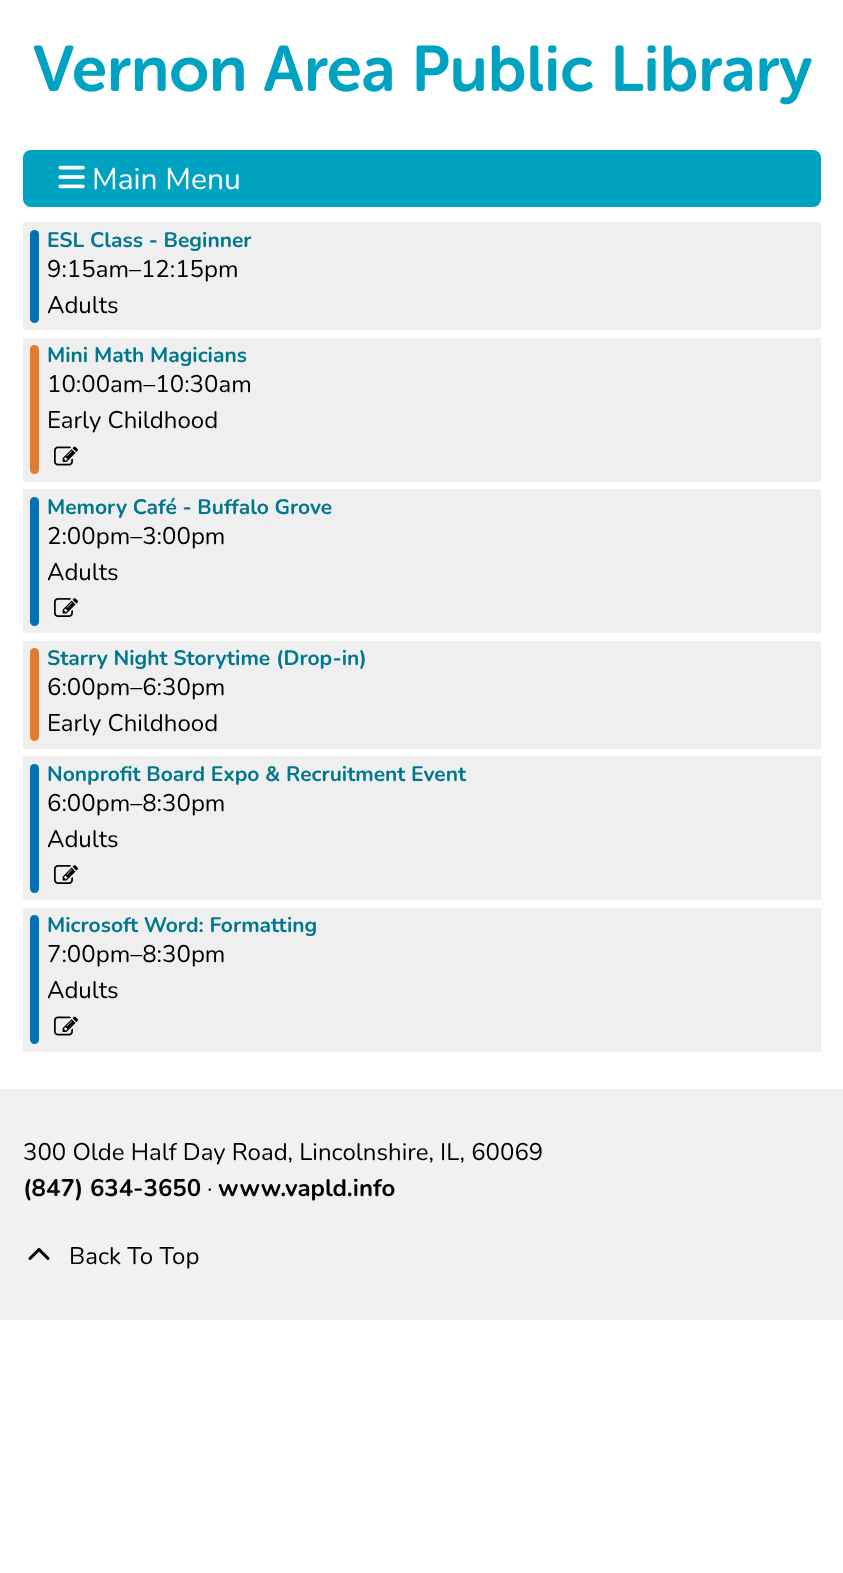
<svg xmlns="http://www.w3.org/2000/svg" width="843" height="1573">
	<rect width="100%" height="100%" fill="#FFFFFF" />
	<image x="33" y="45" width="779" height="60" href="assets/img1.png" />
	<rect x="23" y="150" width="798" height="57" rx="8" fill="#00A2C2" />
	<image x="58" y="165" width="27" height="24" href="assets/img2.png" />
	<text x="92" y="189" font-family="Nunito" font-size="30" fill="#FFFFFF">Main Menu</text>
	<rect x="23" y="222" width="798" height="108" fill="#EFEFEF" />
	<rect x="30" y="230" width="9" height="93" rx="4.5" fill="#0071B9" />
	<text x="47" y="247" font-family="Nunito" font-size="21" font-weight="700" fill="#00778F">ESL Class - Beginner</text>
	<g font-family="Nunito" font-size="24" fill="#000000">
		<text x="47" y="277">9:15am–12:15pm</text>
		<text x="47" y="313">Adults</text>
	</g>
	<rect x="23" y="338" width="798" height="144" fill="#EFEFEF" />
	<rect x="30" y="345" width="9" height="129" rx="4.5" fill="#E27C2E" />
	<text x="47" y="362" font-family="Nunito" font-size="21" font-weight="700" fill="#00778F">Mini Math Magicians</text>
	<g font-family="Nunito" font-size="24" fill="#000000">
		<text x="47" y="392">10:00am–10:30am</text>
		<text x="47" y="428">Early Childhood</text>
	</g>
	<image x="54" y="446" width="24" height="20" href="assets/img3.png" />
	<rect x="23" y="489" width="798" height="144" fill="#EFEFEF" />
	<rect x="30" y="497" width="9" height="129" rx="4.5" fill="#0071B9" />
	<text x="47" y="514" font-family="Nunito" font-size="21" font-weight="700" fill="#00778F">Memory Café - Buffalo Grove</text>
	<g font-family="Nunito" font-size="24" fill="#000000">
		<text x="47" y="544">2:00pm–3:00pm</text>
		<text x="47" y="580">Adults</text>
	</g>
	<image x="54" y="598" width="24" height="19" href="assets/img4.png" />
	<rect x="23" y="641" width="798" height="108" fill="#EFEFEF" />
	<rect x="30" y="648" width="9" height="93" rx="4.5" fill="#E27C2E" />
	<text x="47" y="665" font-family="Nunito" font-size="21" font-weight="700" fill="#00778F">Starry Night Storytime (Drop-in)</text>
	<g font-family="Nunito" font-size="24" fill="#000000">
		<text x="47" y="695">6:00pm–6:30pm</text>
		<text x="47" y="731">Early Childhood</text>
	</g>
	<rect x="23" y="756" width="798" height="144" fill="#EFEFEF" />
	<rect x="30" y="764" width="9" height="129" rx="4.5" fill="#0071B9" />
	<text x="47" y="781" font-family="Nunito" font-size="21" font-weight="700" fill="#00778F">Nonprofit Board Expo &amp; Recruitment Event</text>
	<g font-family="Nunito" font-size="24" fill="#000000">
		<text x="47" y="811">6:00pm–8:30pm</text>
		<text x="47" y="847">Adults</text>
	</g>
	<image x="54" y="865" width="24" height="19" href="assets/img4.png" />
	<rect x="23" y="908" width="798" height="144" fill="#EFEFEF" />
	<rect x="30" y="915" width="9" height="129" rx="4.5" fill="#0071B9" />
	<text x="47" y="932" font-family="Nunito" font-size="21" font-weight="700" fill="#00778F">Microsoft Word: Formatting</text>
	<g font-family="Nunito" font-size="24" fill="#000000">
		<text x="47" y="962">7:00pm–8:30pm</text>
		<text x="47" y="998">Adults</text>
	</g>
	<image x="54" y="1016" width="24" height="20" href="assets/img3.png" />
	<rect x="0" y="1089" width="843" height="231" fill="#EFF1F2" />
	<text x="23" y="1160" font-family="Nunito" font-size="24" fill="#000000">300 Olde Half Day Road, Lincolnshire, IL, 60069</text>
	<text x="23" y="1196" font-family="Nunito" font-size="24" font-weight="700" fill="#000000">(847) 634-3650</text>
	<text x="207" y="1196" font-family="Nunito" font-size="24" fill="#000000">·</text>
	<text x="218" y="1196" font-family="Nunito" font-size="24" font-weight="700" fill="#000000">www.vapld.info</text>
	<image x="28" y="1248" width="22" height="12" href="assets/img5.png" />
	<text x="69" y="1264" font-family="Nunito" font-size="24" fill="#000000">Back To Top</text>
</svg>
